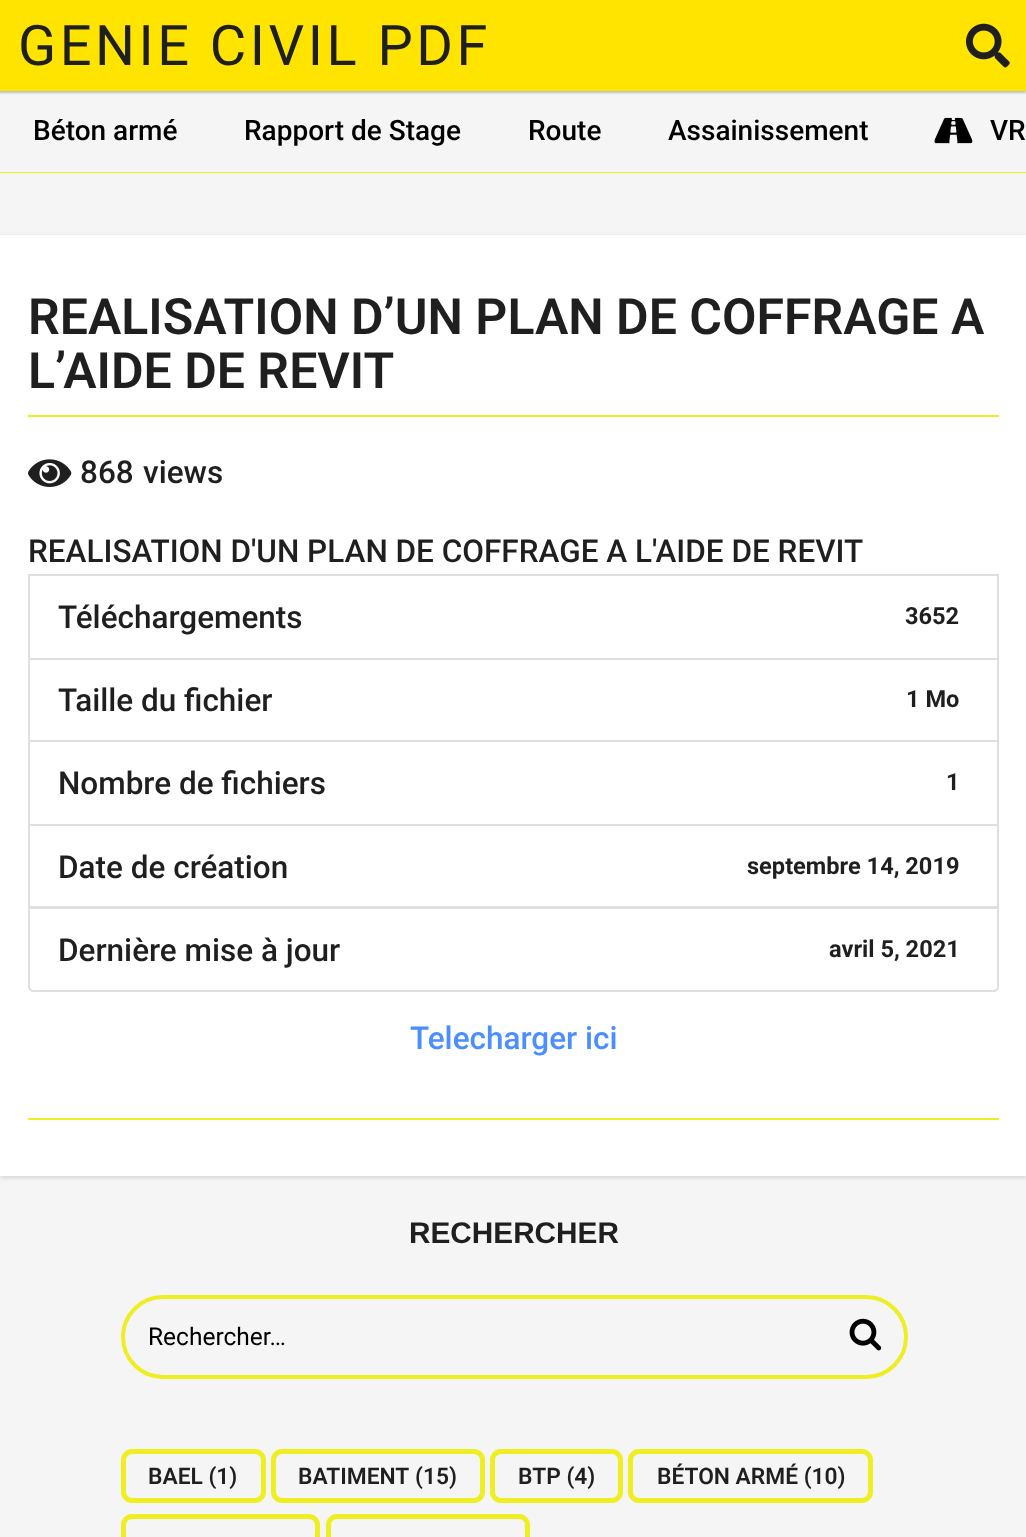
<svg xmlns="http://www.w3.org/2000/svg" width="1026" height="1537">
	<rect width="100%" height="100%" fill="#F5F5F5" />
	<rect x="-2" y="2" width="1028" height="91" fill="#2A2A2A" fill-opacity="0.27" filter="blur(1px)" />
	<rect x="0" y="0" width="1026" height="91" fill="#FFE400" />
	<text x="18" y="65" font-family="Roboto" font-size="56" letter-spacing="3.5" fill="#1F1F1F">GENIE CIVIL PDF</text>
	<image x="966" y="23" width="44" height="45" href="assets/img1.png" />
	<g font-family="Roboto" font-size="28" font-weight="500" fill="#000000">
		<text x="33" y="140">Béton armé</text>
		<text x="244" y="140">Rapport de Stage</text>
		<text x="528" y="140">Route</text>
		<text x="668" y="140">Assainissement</text>
	</g>
	<image x="934" y="117" width="39" height="27" href="assets/img2.png" />
	<text x="990" y="140" font-family="Roboto" font-size="28" font-weight="500" fill="#000000">VR</text>
	<rect x="0" y="172" width="1026" height="1" fill="#EEEE22" />
	<rect x="0" y="236" width="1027" height="942" fill="#2A2A2A" fill-opacity="0.15" filter="blur(2px)" />
	<rect x="0" y="235" width="1026" height="941" fill="#FFFFFF" />
	<g font-family="Roboto" font-size="50" font-weight="600" fill="#1F1F1F">
		<text x="28" y="334">REALISATION D’UN PLAN DE COFFRAGE A</text>
		<text x="28" y="388">L’AIDE DE REVIT</text>
	</g>
	<rect x="28" y="415" width="971" height="2" fill="#EEEE22" />
	<image x="28" y="459" width="44" height="28" href="assets/img3.png" />
	<g font-family="Roboto" font-size="31.5" font-weight="500" fill="#1F1F1F">
		<text x="80" y="483">868</text>
		<text x="143" y="483">views</text>
		<text x="28" y="562">REALISATION D'UN PLAN DE COFFRAGE A L'AIDE DE REVIT</text>
	</g>
	<rect x="29" y="575" width="969" height="84" fill="none" stroke="#DFDFDF" stroke-width="2" />
	<text x="58" y="628" font-family="Roboto" font-size="31.5" font-weight="500" fill="#1F1F1F">Téléchargements</text>
	<text x="905" y="624" font-family="Roboto" font-size="23.6" font-weight="700" fill="#1F1F1F">3652</text>
	<rect x="29" y="659" width="969" height="82" fill="none" stroke="#DFDFDF" stroke-width="2" />
	<text x="58" y="711" font-family="Roboto" font-size="31.5" font-weight="500" fill="#1F1F1F">Taille du fichier</text>
	<text x="906" y="707" font-family="Roboto" font-size="23.6" font-weight="700" fill="#1F1F1F">1 Mo</text>
	<rect x="29" y="741" width="969" height="84" fill="none" stroke="#DFDFDF" stroke-width="2" />
	<text x="58" y="794" font-family="Roboto" font-size="31.5" font-weight="500" fill="#1F1F1F">Nombre de fichiers</text>
	<text x="946" y="790" font-family="Roboto" font-size="23.6" font-weight="700" fill="#1F1F1F">1</text>
	<rect x="29" y="825" width="969" height="82" fill="none" stroke="#DFDFDF" stroke-width="2" />
	<text x="58" y="878" font-family="Roboto" font-size="31.5" font-weight="500" fill="#1F1F1F">Date de création</text>
	<text x="747" y="874" font-family="Roboto" font-size="23.6" font-weight="700" fill="#1F1F1F">septembre 14, 2019</text>
	<path d="M29 908H998V987C998 989 996 991 994 991H33C31 991 29 989 29 987Z" fill="#FFFFFF" stroke="#DFDFDF" stroke-width="2" />
	<text x="58" y="961" font-family="Roboto" font-size="31.5" font-weight="500" fill="#1F1F1F">Dernière mise à jour</text>
	<text x="829" y="957" font-family="Roboto" font-size="23.6" font-weight="700" fill="#1F1F1F">avril 5, 2021</text>
	<text x="410" y="1049" font-family="Roboto" font-size="31.5" font-weight="500" fill="#4A8EFF">Telecharger ici</text>
	<rect x="28" y="1118" width="971" height="2" fill="#EEEE22" />
	<text x="409" y="1243" font-family="Liberation Sans" font-size="29.75" font-weight="700" fill="#1F1F1F">RECHERCHER</text>
	<rect x="123" y="1297" width="783" height="80" rx="40" fill="none" stroke="#EEEE22" stroke-width="4" />
	<text x="148" y="1345" font-family="Roboto" font-size="24.5" fill="#000000">Rechercher…</text>
	<image x="849" y="1318" width="33" height="33" href="assets/img4.png" />
	<rect x="123.5" y="1451.5" width="140" height="49" rx="8.5" fill="none" stroke="#EEEE22" stroke-width="5" />
	<text x="148" y="1484" font-family="Roboto" font-size="22.75" font-weight="600" fill="#1F1F1F">BAEL (1)</text>
	<rect x="273.5" y="1451.5" width="209" height="49" rx="8.5" fill="none" stroke="#EEEE22" stroke-width="5" />
	<g font-family="Roboto" font-size="22.75" font-weight="600" fill="#1F1F1F">
		<text x="298" y="1484">BATIMENT</text>
		<text x="415" y="1484">(15)</text>
	</g>
	<rect x="492.5" y="1451.5" width="128" height="49" rx="8.5" fill="none" stroke="#EEEE22" stroke-width="5" />
	<text x="518" y="1484" font-family="Roboto" font-size="22.75" font-weight="600" fill="#1F1F1F">BTP (4)</text>
	<rect x="630.5" y="1451.5" width="240" height="49" rx="8.5" fill="none" stroke="#EEEE22" stroke-width="5" />
	<text x="657" y="1484" font-family="Roboto" font-size="22.75" font-weight="600" fill="#1F1F1F">BÉTON ARMÉ (10)</text>
	<rect x="123.5" y="1516.5" width="194" height="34" rx="8.5" fill="none" stroke="#EEEE22" stroke-width="5" />
	<rect x="328.5" y="1516.5" width="199" height="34" rx="8.5" fill="none" stroke="#EEEE22" stroke-width="5" />
</svg>
